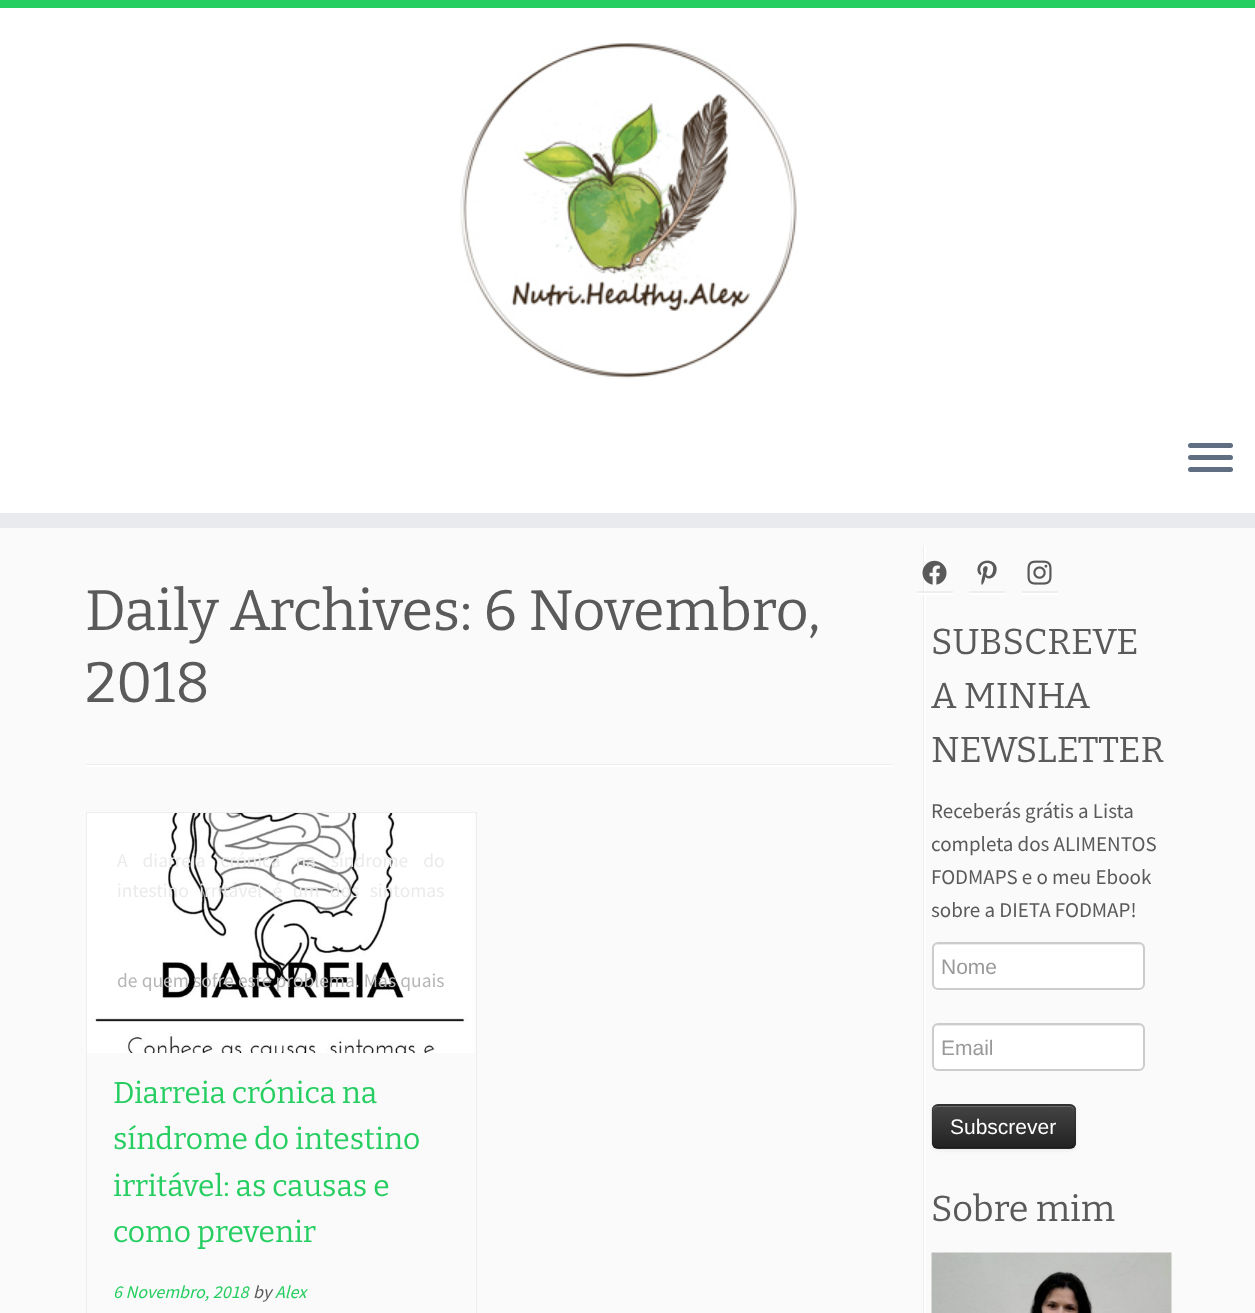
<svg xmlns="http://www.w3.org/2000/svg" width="1255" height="1313">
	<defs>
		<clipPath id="clip1"><rect x="932" y="1104" width="144" height="45" rx="6" /></clipPath>
		<linearGradient id="g1" gradientUnits="userSpaceOnUse" x1="1004" y1="1106" x2="1004" y2="1148"><stop offset="0" stop-color="#444444" /><stop offset="1" stop-color="#222222" /></linearGradient>
	</defs>
	<rect width="100%" height="100%" fill="#FAFAFA" />
	<rect x="0" y="8" width="1255" height="505" fill="#FFFFFF" />
	<rect x="0" y="0" width="1255" height="8" fill="#26CE61" />
	<rect x="0" y="513" width="1255" height="15" fill="#E9EAEE" />
	<image x="460" y="42" width="337" height="337" href="assets/img1.png" />
	<rect x="1188" y="443" width="45" height="5" rx="2.5" fill="#5F6F81" />
	<rect x="1188" y="455" width="45" height="5" rx="2.5" fill="#5F6F81" />
	<rect x="1188" y="467" width="45" height="5" rx="2.5" fill="#5F6F81" />
	<g font-family="Bitter" font-size="57" font-weight="100" fill="#5A5A5A">
		<text x="85" y="630">Daily Archives: 6 Novembro,</text>
		<text x="85" y="702">2018</text>
	</g>
	<rect x="86" y="764" width="807" height="1" fill="#EEEEEE" />
	<rect x="86" y="765" width="807" height="2" fill="#FFFFFF" />
	<rect x="86" y="812" width="391" height="2" fill="#EEEEEE" />
	<path d="M477 812V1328L476 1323V813Z" fill="#EEEEEE" />
	<path d="M86 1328V812L87 813V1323Z" fill="#EEEEEE" />
	<image x="87" y="813" width="389" height="240" href="assets/img2.png" />
	<g font-family="Source Sans Pro" font-size="19.5" fill="#EBEBEB">
		<text x="117" y="867" word-spacing="11">A diarreia crónica na síndrome do</text>
		<text x="117" y="897" word-spacing="6.5">intestino irritável é um dos sintomas</text>
	</g>
	<text x="117" y="987" word-spacing="0.25" font-family="Source Sans Pro" font-size="19.5" fill="#B6B6B6">de quem sofre este problema. Mas quais</text>
	<g font-family="Bitter" font-size="30" font-weight="100" fill="#26CE61">
		<text x="113" y="1103">Diarreia crónica na</text>
		<text x="113" y="1149">síndrome do intestino</text>
		<text x="113" y="1196">irritável: as causas e</text>
		<text x="113" y="1242">como prevenir</text>
	</g>
	<text x="113" y="1298" font-family="Source Sans Pro" font-size="18" font-style="italic" fill="#26CE61">6 Novembro, 2018</text>
	<text x="253" y="1298" font-family="Source Sans Pro" font-size="18" font-style="italic" fill="#5A5A5A">by</text>
	<text x="275" y="1298" font-family="Source Sans Pro" font-size="18" font-style="italic" fill="#26CE61">Alex</text>
	<rect x="923" y="546" width="1" height="767" fill="#EEEEEE" />
	<rect x="924" y="546" width="2" height="767" fill="#FFFFFF" />
	<rect x="917" y="591" width="36" height="2" fill="#EEEEEE" />
	<image x="922" y="560" width="25" height="25" href="assets/img3.png" />
	<rect x="917" y="593" width="36" height="2" fill="#FFFFFF" />
	<rect x="969" y="591" width="36" height="2" fill="#EEEEEE" />
	<image x="977" y="560" width="20" height="25" href="assets/img4.png" />
	<rect x="969" y="593" width="36" height="2" fill="#FFFFFF" />
	<rect x="1022" y="591" width="36" height="2" fill="#EEEEEE" />
	<image x="1027" y="560" width="25" height="25" href="assets/img5.png" />
	<rect x="1022" y="593" width="36" height="2" fill="#FFFFFF" />
	<g font-family="Bitter" font-size="36" font-weight="100" fill="#5A5A5A">
		<text x="931" y="654">SUBSCREVE</text>
		<text x="931" y="708">A MINHA</text>
		<text x="931" y="762">NEWSLETTER</text>
	</g>
	<g font-family="Source Sans Pro" font-size="21" fill="#5A5A5A">
		<text x="931" y="818">Receberás grátis a Lista</text>
		<text x="931" y="851">completa dos ALIMENTOS</text>
		<text x="931" y="884">FODMAPS e o meu Ebook</text>
		<text x="931" y="917">sobre a DIETA FODMAP!</text>
	</g>
	<rect x="932" y="942" width="213" height="48" rx="6" fill="#FFFFFF" />
	<path d="M938 945H1138C1141 945 1143 947 1143 950V949C1143 946 1141 944 1138 944H938C935 944 933 946 933 949V950C933 947 935 945 938 945Z" fill="#ECECEC" />
	<rect x="933" y="943" width="211" height="46" rx="5" fill="none" stroke="#CCCCCC" stroke-width="2" />
	<text x="941" y="974" font-family="Liberation Sans" font-size="21" fill="#999999">Nome</text>
	<rect x="932" y="1023" width="213" height="48" rx="6" fill="#FFFFFF" />
	<path d="M938 1026H1138C1141 1026 1143 1028 1143 1030C1143 1027 1141 1025 1138 1025H938C935 1025 933 1027 933 1030C933 1028 935 1026 938 1026Z" fill="#ECECEC" />
	<rect x="933" y="1024" width="211" height="46" rx="5" fill="none" stroke="#CCCCCC" stroke-width="2" />
	<text x="941" y="1055" font-family="Liberation Sans" font-size="21" fill="#999999">Email</text>
	<rect x="932" y="1106" width="144" height="45" rx="6" fill="#000000" fill-opacity="0.05" filter="blur(1.5px)" />
	<rect x="932" y="1104" width="144" height="45" rx="6" fill="#363636" />
	<g clip-path="url(#clip1)">
		<rect x="932" y="1106" width="144" height="42" fill="url(#g1)" />
	</g>
	<path d="M938 1107H1070C1072 1107 1074 1109 1074 1112V1111C1074 1108 1072 1106 1069 1106H938C935 1106 933 1108 933 1111V1112C933 1109 935 1107 938 1107Z" fill="#696969" />
	<path d="M1073 1146.5C1072 1147.5 1071 1148 1069.5 1148H937.5C936 1148 935 1147.5 934 1146.5" fill="none" stroke="#000000" stroke-opacity="0.25" stroke-width="1.5" />
	<path d="M934 1146.5C930.5 1143.5 932 1135.5 932 1132C932 1100.5 926.5 1105 959.5 1105H1047.5C1080.5 1105 1075 1100.5 1075 1132C1075 1135.5 1076.5 1143.5 1073 1146.5" fill="none" stroke="#000000" stroke-opacity="0.1" stroke-width="1.5" />
	<text x="950" y="1134" font-family="Liberation Sans" font-size="21" fill="#FFFFFF">Subscrever</text>
	<text x="931" y="1221" font-family="Bitter" font-size="36" font-weight="100" fill="#5A5A5A">Sobre mim</text>
	<image x="931" y="1252" width="241" height="61" href="assets/img6.png" />
</svg>
